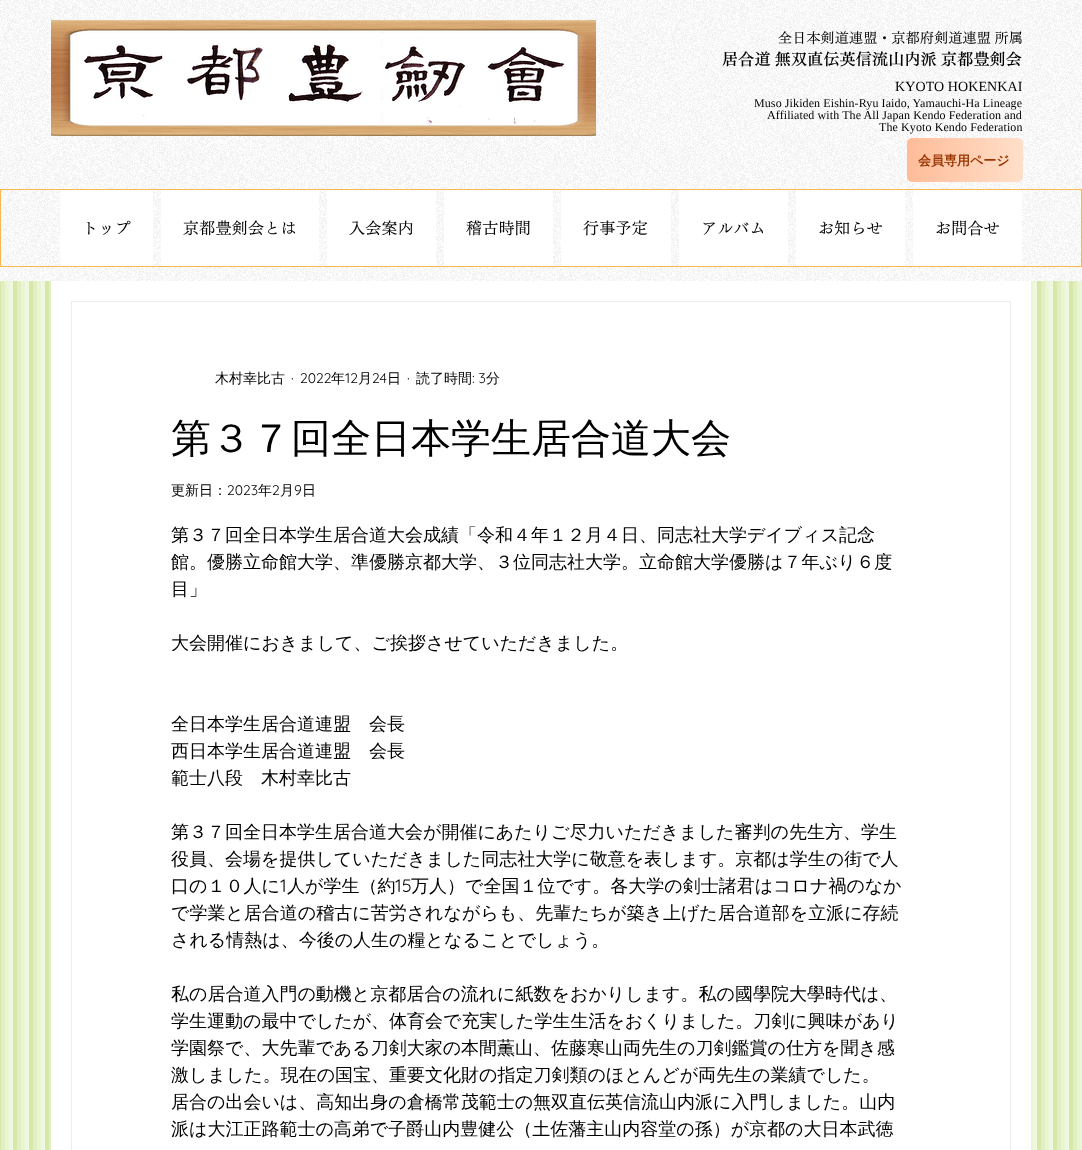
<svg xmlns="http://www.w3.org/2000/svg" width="1082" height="1150">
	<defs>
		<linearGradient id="g1" gradientUnits="userSpaceOnUse" x1="907" y1="160" x2="1023" y2="160"><stop offset="0" stop-color="#FFBC99" /><stop offset="1" stop-color="#FFDFC9" /></linearGradient>
	</defs>
	<rect width="100%" height="100%" fill="#FFFFFF" />
	<image x="0" y="0" width="1082" height="281" href="assets/img1.png" />
	<image x="51" y="20" width="545" height="116" href="assets/img2.png" />
	<text x="778" y="43" font-family="'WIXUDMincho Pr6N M'" font-size="14" font-weight="500" letter-spacing="0.2" fill="#000000">全日本剣道連盟・京都府剣道連盟 所属</text>
	<text x="722" y="65" font-family="'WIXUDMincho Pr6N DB'" font-size="16" font-weight="600" letter-spacing="0.2" fill="#000000">居合道 無双直伝英信流山内派 京都豊剣会</text>
	<text x="895" y="91" font-family="Liberation Serif" font-size="14" letter-spacing="0.1" fill="#000000">KYOTO HOKENKAI</text>
	<g font-family="Liberation Serif" font-size="12" letter-spacing="0.1" fill="#000000">
		<text x="754" y="107">Muso Jikiden Eishin-Ryu Iaido, Yamauchi-Ha Lineage</text>
		<text x="767" y="119">Affiliated with The All Japan Kendo Federation and</text>
		<text x="879" y="131">The Kyoto Kendo Federation</text>
	</g>
	<rect x="907" y="138" width="116" height="44" rx="5" fill="url(#g1)" />
	<text x="918" y="165" font-family="WenQuanYi Zen Hei" font-size="13" font-weight="700" fill="#993500">会員専用ページ</text>
	<rect x="0.5" y="189.5" width="1081" height="77" fill="none" stroke="#FBB651" />
	<rect x="60" y="190" width="93" height="76" fill="#FFFFFF" />
	<text x="82" y="234" font-family="'WIXUDMincho Pr6N M'" font-size="16" font-weight="500" letter-spacing="0.25" fill="#000000">トップ</text>
	<rect x="161" y="190" width="158" height="76" fill="#FFFFFF" />
	<text x="183" y="234" font-family="'WIXUDMincho Pr6N M'" font-size="16" font-weight="500" letter-spacing="0.25" fill="#000000">京都豊剣会とは</text>
	<rect x="327" y="190" width="109" height="76" fill="#FFFFFF" />
	<text x="349" y="234" font-family="'WIXUDMincho Pr6N M'" font-size="16" font-weight="500" letter-spacing="0.25" fill="#000000">入会案内</text>
	<rect x="444" y="190" width="109" height="76" fill="#FFFFFF" />
	<text x="466" y="234" font-family="'WIXUDMincho Pr6N M'" font-size="16" font-weight="500" letter-spacing="0.25" fill="#000000">稽古時間</text>
	<rect x="561" y="190" width="110" height="76" fill="#FFFFFF" />
	<text x="583" y="234" font-family="'WIXUDMincho Pr6N M'" font-size="16" font-weight="500" letter-spacing="0.25" fill="#000000">行事予定</text>
	<rect x="679" y="190" width="109" height="76" fill="#FFFFFF" />
	<text x="701" y="234" font-family="'WIXUDMincho Pr6N M'" font-size="16" font-weight="500" letter-spacing="0.25" fill="#000000">アルバム</text>
	<rect x="796" y="190" width="109" height="76" fill="#FFFFFF" />
	<text x="818" y="234" font-family="'WIXUDMincho Pr6N M'" font-size="16" font-weight="500" letter-spacing="0.25" fill="#000000">お知らせ</text>
	<rect x="913" y="190" width="109" height="76" fill="#FFFFFF" />
	<text x="935" y="234" font-family="'WIXUDMincho Pr6N M'" font-size="16" font-weight="500" letter-spacing="0.25" fill="#000000">お問合せ</text>
	<image x="0" y="281" width="1082" height="869" href="assets/img3.png" />
	<rect x="51" y="281" width="980" height="869" fill="#FFFFFF" />
	<rect x="71.5" y="301.5" width="939" height="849" fill="none" stroke="#EEECEC" />
	<text x="215" y="383" font-family="WenQuanYi Zen Hei" font-size="14" font-weight="500" fill="#000000">木村幸比古</text>
	<g font-family="Quicksand" font-size="14" fill="#000000">
		<text x="291" y="383">·</text>
		<text x="300" y="383">2022</text>
	</g>
	<text x="331" y="383" font-family="WenQuanYi Zen Hei" font-size="14" font-weight="500" fill="#000000">年</text>
	<text x="345" y="383" font-family="Quicksand" font-size="14" fill="#000000">12</text>
	<text x="358" y="383" font-family="WenQuanYi Zen Hei" font-size="14" font-weight="500" fill="#000000">月</text>
	<text x="372" y="383" font-family="Quicksand" font-size="14" fill="#000000">24</text>
	<text x="387" y="383" font-family="WenQuanYi Zen Hei" font-size="14" font-weight="500" fill="#000000">日</text>
	<text x="407" y="383" font-family="Quicksand" font-size="14" fill="#000000">·</text>
	<text x="416" y="383" font-family="WenQuanYi Zen Hei" font-size="14" font-weight="500" fill="#000000">読了時間</text>
	<text x="472" y="383" font-family="Quicksand" font-size="14" fill="#000000">: 3</text>
	<text x="486" y="383" font-family="WenQuanYi Zen Hei" font-size="14" font-weight="500" fill="#000000">分</text>
	<text x="171" y="452" font-family="WenQuanYi Zen Hei" font-size="40" font-weight="500" fill="#000000">第３７回全日本学生居合道大会</text>
	<text x="171" y="495" font-family="WenQuanYi Zen Hei" font-size="14" font-weight="500" fill="#000000">更新日：</text>
	<text x="227" y="495" font-family="Quicksand" font-size="14" fill="#000000">2023</text>
	<text x="258" y="495" font-family="WenQuanYi Zen Hei" font-size="14" font-weight="500" fill="#000000">年</text>
	<text x="272" y="495" font-family="Quicksand" font-size="14" fill="#000000">2</text>
	<text x="280" y="495" font-family="WenQuanYi Zen Hei" font-size="14" font-weight="500" fill="#000000">月</text>
	<text x="294" y="495" font-family="Quicksand" font-size="14" fill="#000000">9</text>
	<text x="302" y="495" font-family="WenQuanYi Zen Hei" font-size="14" font-weight="500" fill="#000000">日</text>
	<g font-family="WenQuanYi Zen Hei" font-size="18" font-weight="500" fill="#000000">
		<text x="171" y="541">第３７回全日本学生居合道大会成績「令和４年１２月４日、同志社大学デイブィス記念</text>
		<text x="171" y="568">館。優勝立命館大学、準優勝京都大学、３位同志社大学。立命館大学優勝は７年ぶり６度</text>
		<text x="171" y="595">目」</text>
		<text x="171" y="649">大会開催におきまして、ご挨拶させていただきました。</text>
		<text x="171" y="730">全日本学生居合道連盟　会長</text>
		<text x="171" y="757">西日本学生居合道連盟　会長</text>
		<text x="171" y="784">範士八段　木村幸比古</text>
		<text x="171" y="838">第３７回全日本学生居合道大会が開催にあたりご尽力いただきました審判の先生方、学生</text>
		<text x="171" y="865">役員、会場を提供していただきました同志社大学に敬意を表します。京都は学生の街で人</text>
		<text x="171" y="892">口の１０人に</text>
	</g>
	<text x="280" y="892" font-family="Quicksand" font-size="18" fill="#000000">1</text>
	<text x="287" y="892" font-family="WenQuanYi Zen Hei" font-size="18" font-weight="500" fill="#000000">人が学生（約</text>
	<text x="395" y="892" font-family="Quicksand" font-size="18" fill="#000000">15</text>
	<g font-family="WenQuanYi Zen Hei" font-size="18" font-weight="500" fill="#000000">
		<text x="411" y="892">万人）で全国１位です。各大学の剣士諸君はコロナ禍のなか</text>
		<text x="171" y="919">で学業と居合道の稽古に苦労されながらも、先輩たちが築き上げた居合道部を立派に存続</text>
		<text x="171" y="946">される情熱は、今後の人生の糧となることでしょう。</text>
		<text x="171" y="1000">私の居合道入門の動機と京都居合の流れに紙数をおかりします。私の國學院大學時代は、</text>
		<text x="171" y="1027">学生運動の最中でしたが、体育会で充実した学生生活をおくりました。刀剣に興味があり</text>
		<text x="171" y="1054">学園祭で、大先輩である刀剣大家の本間薫山、佐藤寒山両先生の刀剣鑑賞の仕方を聞き感</text>
		<text x="171" y="1081">激しました。現在の国宝、重要文化財の指定刀剣類のほとんどが両先生の業績でした。</text>
		<text x="171" y="1108">居合の出会いは、高知出身の倉橋常茂範士の無双直伝英信流山内派に入門しました。山内</text>
		<text x="171" y="1135">派は大江正路範士の高弟で子爵山内豊健公（土佐藩主山内容堂の孫）が京都の大日本武徳</text>
	</g>
</svg>
